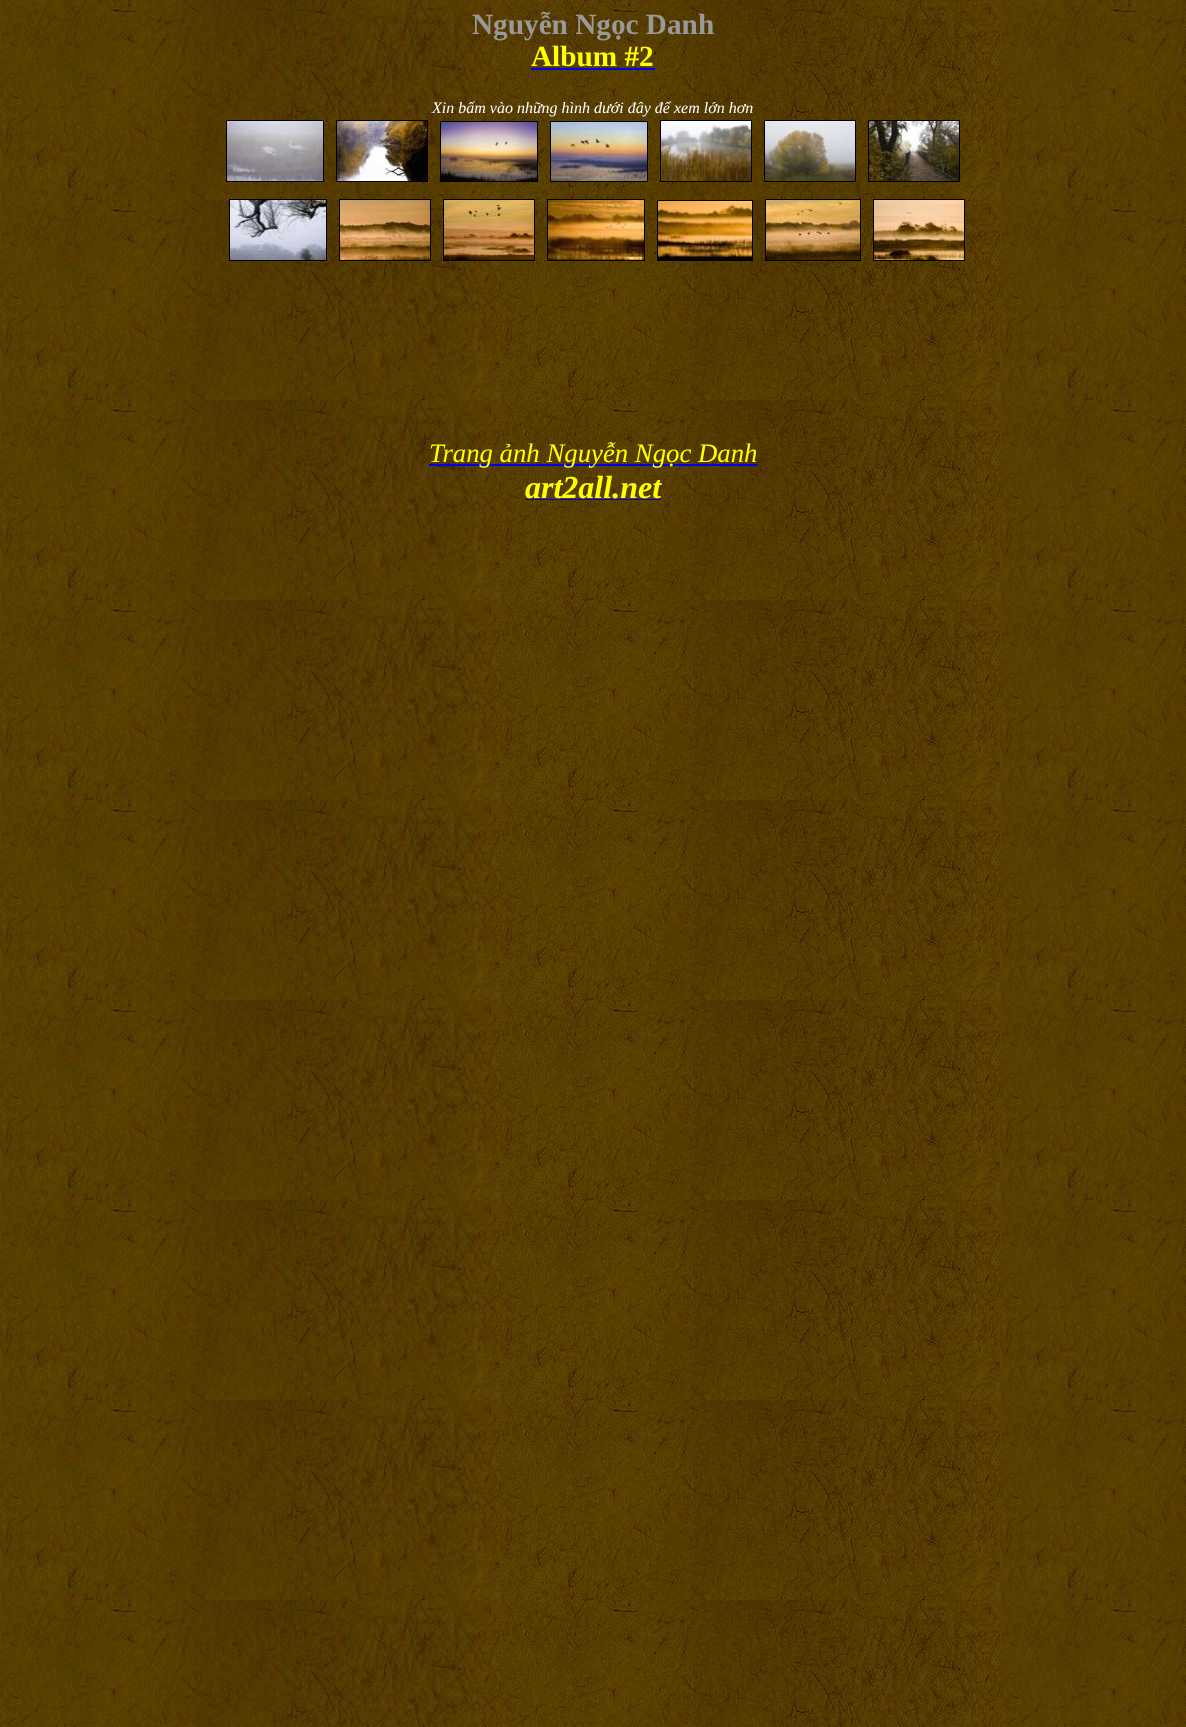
<svg xmlns="http://www.w3.org/2000/svg" width="1186" height="1727">
	<rect width="100%" height="100%" fill="#FFFFFF" />
	<image x="0" y="0" width="1186" height="1727" href="assets/img1.png" />
	<text x="472" y="34" font-family="Liberation Serif" font-size="29.25" font-weight="700" fill="#999999">Nguyễn Ngọc Danh</text>
	<text x="531" y="66" font-family="Liberation Serif" font-size="29.25" font-weight="700" fill="#FFFF00">Album #2</text>
	<rect x="531" y="68" width="124" height="2" fill="#0000EE" />
	<text x="432" y="113" font-family="Liberation Serif" font-size="16" font-style="italic" fill="#FFFFFF">Xin bấm vào những hình dưới đây để xem lớn hơn</text>
	<rect x="226.5" y="120.5" width="97" height="61" fill="none" stroke="#000000" />
	<rect x="336.5" y="120.5" width="91" height="61" fill="none" stroke="#000000" />
	<rect x="660.5" y="120.5" width="91" height="61" fill="none" stroke="#000000" />
	<rect x="764.5" y="120.5" width="91" height="61" fill="none" stroke="#000000" />
	<rect x="868.5" y="120.5" width="91" height="61" fill="none" stroke="#000000" />
	<image x="227" y="121" width="96" height="60" href="assets/img2.png" />
	<image x="337" y="121" width="90" height="60" href="assets/img3.png" />
	<rect x="440.5" y="121.5" width="97" height="60" fill="none" stroke="#000000" />
	<rect x="550.5" y="121.5" width="97" height="60" fill="none" stroke="#000000" />
	<image x="661" y="121" width="90" height="60" href="assets/img4.png" />
	<image x="765" y="121" width="90" height="60" href="assets/img5.png" />
	<image x="869" y="121" width="90" height="60" href="assets/img6.png" />
	<image x="441" y="122" width="96" height="59" href="assets/img7.png" />
	<image x="551" y="122" width="96" height="59" href="assets/img8.png" />
	<rect x="229.5" y="199.5" width="97" height="61" fill="none" stroke="#000000" />
	<rect x="339.5" y="199.5" width="91" height="61" fill="none" stroke="#000000" />
	<rect x="443.5" y="199.5" width="91" height="61" fill="none" stroke="#000000" />
	<rect x="547.5" y="199.5" width="97" height="61" fill="none" stroke="#000000" />
	<rect x="765.5" y="199.5" width="95" height="61" fill="none" stroke="#000000" />
	<rect x="873.5" y="199.5" width="91" height="61" fill="none" stroke="#000000" />
	<image x="230" y="200" width="96" height="60" href="assets/img9.png" />
	<image x="340" y="200" width="90" height="60" href="assets/img10.png" />
	<image x="444" y="200" width="90" height="60" href="assets/img11.png" />
	<image x="548" y="200" width="96" height="60" href="assets/img12.png" />
	<rect x="657.5" y="200.5" width="95" height="60" fill="none" stroke="#000000" />
	<image x="766" y="200" width="94" height="60" href="assets/img13.png" />
	<image x="874" y="200" width="90" height="60" href="assets/img14.png" />
	<image x="658" y="201" width="94" height="59" href="assets/img15.png" />
	<rect x="429" y="464" width="328" height="2" fill="#0000EE" />
	<text x="429" y="462" font-family="Liberation Serif" font-size="26.75" font-style="italic" fill="#FFFF00">Trang ảnh Nguyễn Ngọc Danh</text>
	<text x="525" y="498" font-family="Liberation Serif" font-size="32" font-weight="700" font-style="italic" fill="#FFFF00">art2all.net</text>
	<rect x="525" y="499" width="136" height="1" fill="#0000EE" />
</svg>
